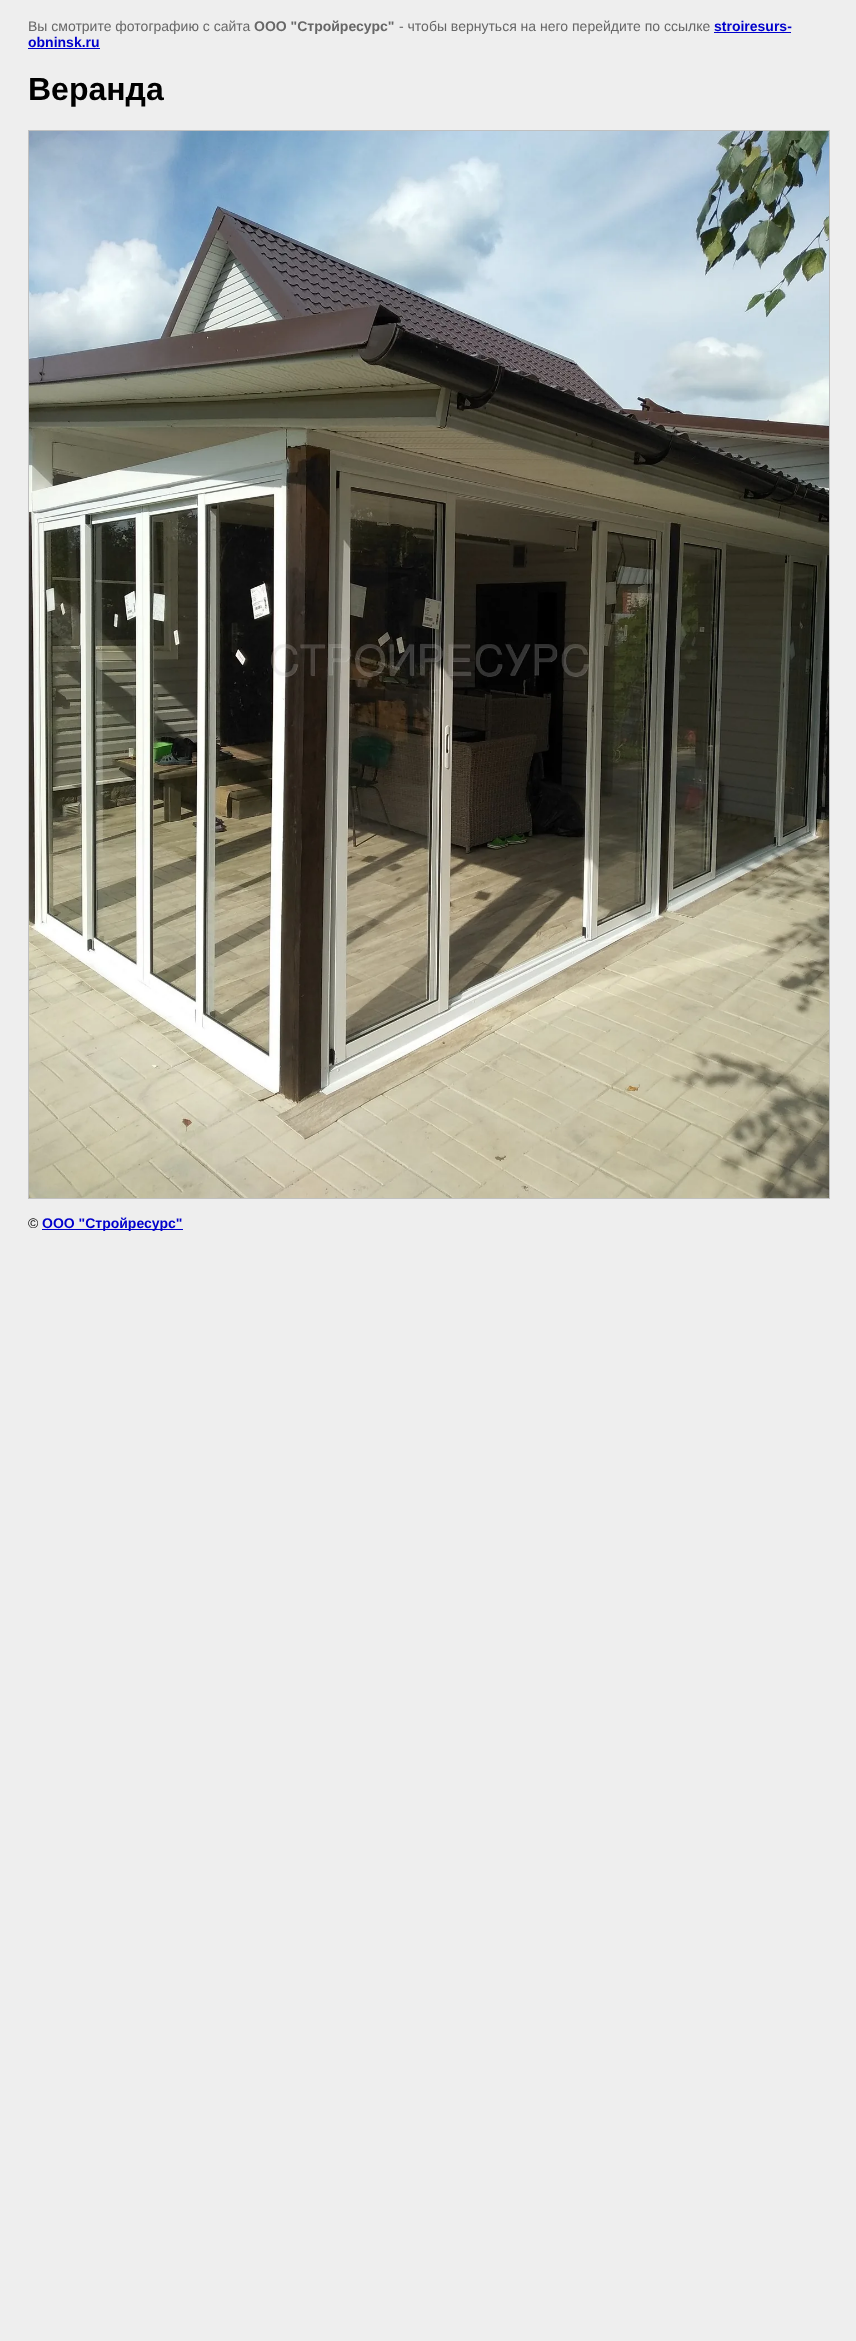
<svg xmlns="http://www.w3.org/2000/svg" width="856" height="2341">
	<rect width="100%" height="100%" fill="#EEEEEE" />
	<text x="28" y="31" font-family="Liberation Sans" font-size="14" fill="#666666">Вы смотрите фотографию с сайта</text>
	<text x="254" y="31" font-family="Liberation Sans" font-size="14" font-weight="700" fill="#666666">ООО "Стройресурс"</text>
	<text x="399" y="31" font-family="Liberation Sans" font-size="14" fill="#666666">- чтобы вернуться на него перейдите по ссылке</text>
	<text x="714" y="31" font-family="Liberation Sans" font-size="14" font-weight="700" fill="#0000CC">stroiresurs-</text>
	<rect x="714" y="32" width="77" height="1" fill="#0000CC" />
	<text x="28" y="47" font-family="Liberation Sans" font-size="14" font-weight="700" fill="#0000CC">obninsk.ru</text>
	<rect x="28" y="48" width="72" height="1" fill="#0000CC" />
	<text x="28" y="100" font-family="Liberation Sans" font-size="32" font-weight="700" fill="#000000">Веранда</text>
	<rect x="28.5" y="130.5" width="801" height="1068" fill="none" stroke="#C0C0C0" />
	<image x="29" y="131" width="800" height="1067" href="assets/img1.png" />
	<text x="28" y="1228" font-family="Liberation Sans" font-size="14" fill="#000000">©</text>
	<rect x="42" y="1229" width="141" height="1" fill="#0000CC" />
	<text x="42" y="1228" font-family="Liberation Sans" font-size="14" font-weight="700" fill="#0000CC">ООО "Стройресурс"</text>
</svg>
